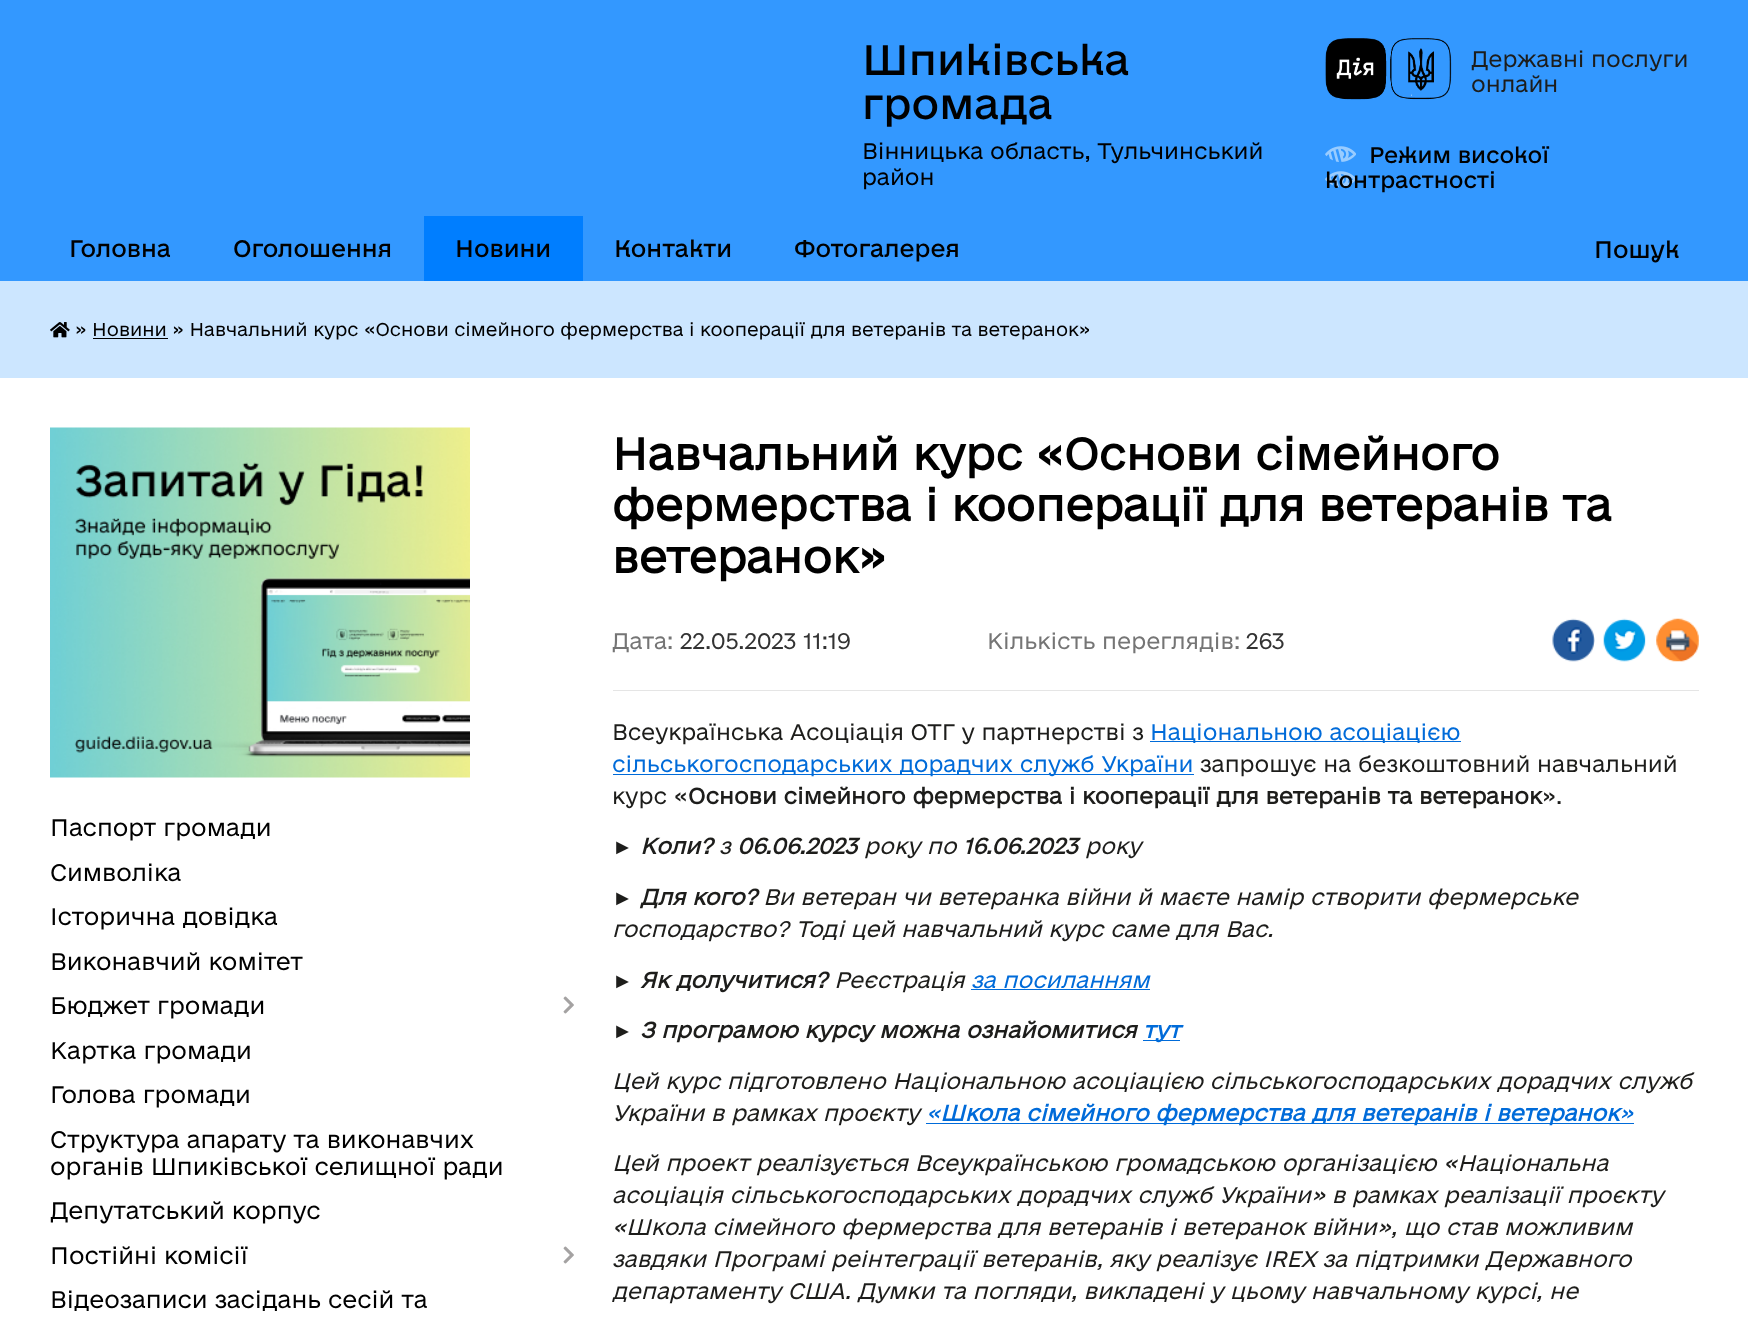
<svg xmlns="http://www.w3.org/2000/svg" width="1748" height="1326">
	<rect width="100%" height="100%" fill="#FFFFFF" />
	<rect x="0" y="0" width="1748" height="281" fill="#3398FF" />
	<g font-family="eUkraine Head" font-size="40" fill="#000000">
		<text x="862" y="75">Шпиківська</text>
		<text x="862" y="119">громада</text>
	</g>
	<g font-family="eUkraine" font-size="21.25" font-weight="300" fill="#000000">
		<text x="862" y="159">Вінницька область, Тульчинський</text>
		<text x="862" y="185">район</text>
	</g>
	<image x="1325" y="38" width="127" height="62" href="assets/img1.png" />
	<g font-family="eUkraine" font-size="21.25" font-weight="300" fill="#1D1D1B">
		<text x="1471" y="67">Державні послуги</text>
		<text x="1471" y="92">онлайн</text>
	</g>
	<image x="1325" y="146" width="31" height="41" href="assets/img2.png" />
	<g font-family="eUkraine Head" font-size="21.25" fill="#000000">
		<text x="1369" y="163">Режим високої</text>
		<text x="1325" y="188">контрастності</text>
	</g>
	<g font-family="eUkraine Head" font-size="22.5" fill="#000000">
		<text x="69" y="257">Головна</text>
		<text x="233" y="257">Оголошення</text>
	</g>
	<rect x="424" y="216" width="159" height="65" fill="#007EFF" />
	<g font-family="eUkraine Head" font-size="22.5" fill="#000000">
		<text x="455" y="257">Новини</text>
		<text x="614" y="257">Контакти</text>
		<text x="794" y="257">Фотогалерея</text>
		<text x="1594" y="258">Пошук</text>
	</g>
	<rect x="0" y="281" width="1748" height="97" fill="#CCE6FF" />
	<image x="50" y="322" width="20" height="16" href="assets/img3.png" />
	<text x="75" y="336" font-family="eUkraine" font-size="17.5" font-weight="300" fill="#000000">» Новини » Навчальний курс «Основи сімейного фермерства і кооперації для ветеранів та ветеранок»</text>
	<rect x="93" y="338" width="75" height="1" fill="#000000" />
	<image x="50" y="427" width="420" height="351" href="assets/img4.png" />
	<g font-family="eUkraine" font-size="22.5" font-weight="300" fill="#000000">
		<text x="50" y="836">Паспорт громади</text>
		<text x="50" y="881">Символіка</text>
		<text x="50" y="925">Історична довідка</text>
		<text x="50" y="970">Виконавчий комітет</text>
		<text x="50" y="1014">Бюджет громади</text>
	</g>
	<image x="563" y="996" width="11" height="18" href="assets/img5.png" />
	<g font-family="eUkraine" font-size="22.5" font-weight="300" fill="#000000">
		<text x="50" y="1059">Картка громади</text>
		<text x="50" y="1103">Голова громади</text>
		<text x="50" y="1148">Структура апарату та виконавчих</text>
		<text x="50" y="1175">органів Шпиківської селищної ради</text>
		<text x="50" y="1219">Депутатський корпус</text>
		<text x="50" y="1264">Постійні комісії</text>
	</g>
	<image x="563" y="1246" width="11" height="18" href="assets/img5.png" />
	<text x="50" y="1308" font-family="eUkraine" font-size="22.5" font-weight="300" fill="#000000">Відеозаписи засідань сесій та</text>
	<g font-family="eUkraine" font-size="42.5" font-weight="700" fill="#000000">
		<text x="612" y="470">Навчальний курс «Основи сімейного</text>
		<text x="612" y="521">фермерства і кооперації для ветеранів та</text>
		<text x="612" y="573">ветеранок»</text>
	</g>
	<text x="612" y="649" font-family="eUkraine" font-size="21.25" font-weight="300" fill="#757575">Дата:</text>
	<text x="680" y="649" font-family="eUkraine" font-size="21.25" font-weight="300" fill="#333333">22.05.2023 11:19</text>
	<text x="987" y="649" font-family="eUkraine" font-size="21.25" font-weight="300" fill="#757575">Кількість переглядів:</text>
	<text x="1246" y="649" font-family="eUkraine" font-size="21.25" font-weight="300" fill="#333333">263</text>
	<image x="1552" y="618" width="43" height="44" href="assets/img6.png" />
	<image x="1603" y="618" width="43" height="44" href="assets/img7.png" />
	<image x="1656" y="618" width="43" height="44" href="assets/img8.png" />
	<rect x="613" y="690" width="1086" height="1" fill="#E5E5E5" />
	<text x="612" y="740" font-family="eUkraine" font-size="21.25" font-weight="300" fill="#1D1D1B">Всеукраїнська Асоціація ОТГ у партнерстві з</text>
	<rect x="1150" y="741" width="311" height="1" fill="#006BD9" />
	<text x="1150" y="740" font-family="eUkraine" font-size="21.25" font-weight="300" fill="#006BD9">Національною асоціацією</text>
	<rect x="613" y="774" width="581" height="1" fill="#006BD9" />
	<text x="612" y="772" font-family="eUkraine" font-size="21.25" font-weight="300" fill="#006BD9">сільськогосподарських дорадчих служб України</text>
	<g font-family="eUkraine" font-size="21.25" font-weight="300" fill="#1D1D1B">
		<text x="1200" y="772">запрошує на безкоштовний навчальний</text>
		<text x="612" y="804">курс «</text>
	</g>
	<text x="688" y="804" font-family="eUkraine" font-size="21.25" font-weight="700" fill="#1D1D1B">Основи сімейного фермерства і кооперації для ветеранів та ветеранок</text>
	<text x="1542" y="804" font-family="eUkraine" font-size="21.25" font-weight="300" fill="#1D1D1B">».</text>
	<text x="612" y="854" font-family="Liberation Sans" font-size="21.25" font-weight="700" font-style="italic" fill="#1D1D1B">►</text>
	<text x="640" y="854" font-family="eUkraine" font-size="21.25" font-weight="700" font-style="italic" fill="#1D1D1B">Коли?</text>
	<text x="719" y="854" font-family="eUkraine" font-size="21.25" font-weight="300" font-style="italic" fill="#1D1D1B">з</text>
	<text x="737" y="854" font-family="eUkraine" font-size="21.25" font-weight="700" font-style="italic" fill="#1D1D1B">06.06.2023</text>
	<text x="864" y="854" font-family="eUkraine" font-size="21.25" font-weight="300" font-style="italic" fill="#1D1D1B">року по</text>
	<text x="963" y="854" font-family="eUkraine" font-size="21.25" font-weight="700" font-style="italic" fill="#1D1D1B">16.06.2023</text>
	<text x="1085" y="854" font-family="eUkraine" font-size="21.25" font-weight="300" font-style="italic" fill="#1D1D1B">року</text>
	<text x="612" y="905" font-family="Liberation Sans" font-size="21.25" font-weight="700" font-style="italic" fill="#1D1D1B">►</text>
	<text x="640" y="905" font-family="eUkraine" font-size="21.25" font-weight="700" font-style="italic" fill="#1D1D1B">Для кого?</text>
	<g font-family="eUkraine" font-size="21.25" font-weight="300" font-style="italic" fill="#1D1D1B">
		<text x="763" y="905">Ви ветеран чи ветеранка війни й маєте намір створити фермерське</text>
		<text x="612" y="937">господарство? Тоді цей навчальний курс саме для Вас.</text>
	</g>
	<text x="612" y="988" font-family="Liberation Sans" font-size="21.25" font-weight="700" font-style="italic" fill="#1D1D1B">►</text>
	<text x="640" y="988" font-family="eUkraine" font-size="21.25" font-weight="700" font-style="italic" fill="#1D1D1B">Як долучитися?</text>
	<text x="834" y="988" font-family="eUkraine" font-size="21.25" font-weight="300" font-style="italic" fill="#1D1D1B">Реєстрація</text>
	<text x="971" y="988" font-family="eUkraine" font-size="21.25" font-weight="300" font-style="italic" fill="#006BD9">за посиланням</text>
	<rect x="971" y="989" width="179" height="1" fill="#006BD9" />
	<text x="612" y="1038" font-family="Liberation Sans" font-size="21.25" font-weight="700" font-style="italic" fill="#1D1D1B">►</text>
	<text x="640" y="1038" font-family="eUkraine" font-size="21.25" font-weight="700" font-style="italic" fill="#1D1D1B">З програмою курсу можна ознайомитися</text>
	<rect x="1143" y="1040" width="37" height="1" fill="#006BD9" />
	<text x="1143" y="1038" font-family="eUkraine" font-size="21.25" font-weight="700" font-style="italic" fill="#006BD9">тут</text>
	<g font-family="eUkraine" font-size="21.25" font-weight="300" font-style="italic" fill="#1D1D1B">
		<text x="612" y="1089">Цей курс підготовлено Національною асоціацією сільськогосподарських дорадчих служб</text>
		<text x="612" y="1121">України в рамках проєкту</text>
	</g>
	<text x="926" y="1121" font-family="eUkraine" font-size="21.25" font-weight="300" font-style="italic" fill="#006BD9">«</text>
	<rect x="926" y="1123" width="694" height="1" fill="#006BD9" />
	<text x="940" y="1121" font-family="eUkraine" font-size="21.25" font-weight="700" font-style="italic" fill="#006BD9">Школа сімейного фермерства для ветеранів і ветеранок</text>
	<rect x="1620" y="1123" width="14" height="1" fill="#006BD9" />
	<text x="1619" y="1121" font-family="eUkraine" font-size="21.25" font-weight="300" font-style="italic" fill="#006BD9">»</text>
	<g font-family="eUkraine" font-size="21.25" font-weight="300" font-style="italic" fill="#1D1D1B">
		<text x="612" y="1171">Цей проект реалізується Всеукраїнською громадською організацією «Національна</text>
		<text x="612" y="1203">асоціація сільськогосподарських дорадчих служб України» в рамках реалізації проєкту</text>
		<text x="612" y="1235">«Школа сімейного фермерства для ветеранів і ветеранок війни», що став можливим</text>
		<text x="612" y="1267">завдяки Програмі реінтеграції ветеранів, яку реалізує IREX за підтримки Державного</text>
		<text x="612" y="1299">департаменту США. Думки та погляди, викладені у цьому навчальному курсі, не</text>
	</g>
</svg>
